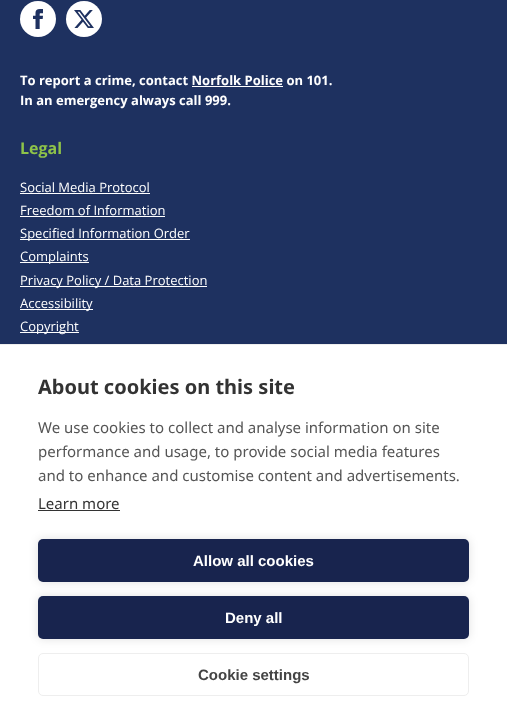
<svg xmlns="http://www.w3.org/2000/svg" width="507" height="721">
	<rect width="100%" height="100%" fill="#1E3160" />
	<circle cx="38" cy="19" r="18" fill="#FFFFFF" />
	<image x="33" y="9" width="10" height="20" href="assets/img1.png" />
	<circle cx="84" cy="19" r="18" fill="#FFFFFF" />
	<image x="74" y="10" width="20" height="18" href="assets/img2.png" />
	<text x="20" y="85" font-family="Open Sans" font-size="13" font-weight="700" fill="#FFFFFF">To report a crime, contact Norfolk Police on 101.</text>
	<rect x="192" y="86" width="91" height="1" fill="#FFFFFF" />
	<text x="20" y="105" font-family="Open Sans" font-size="13" font-weight="700" fill="#FFFFFF">In an emergency always call 999.</text>
	<text x="20" y="154" font-family="Open Sans" font-size="16" font-weight="700" fill="#8EC349">Legal</text>
	<text x="20" y="192" font-family="Open Sans" font-size="13" fill="#FFFFFF">Social Media Protocol</text>
	<rect x="20" y="193" width="130" height="1" fill="#FFFFFF" />
	<text x="20" y="215" font-family="Open Sans" font-size="13" fill="#FFFFFF">Freedom of Information</text>
	<rect x="20" y="216" width="145" height="1" fill="#FFFFFF" />
	<rect x="20" y="239" width="170" height="1" fill="#FFFFFF" />
	<text x="20" y="238" font-family="Open Sans" font-size="13" fill="#FFFFFF">Specified Information Order</text>
	<rect x="20" y="262" width="69" height="1" fill="#FFFFFF" />
	<text x="20" y="261" font-family="Open Sans" font-size="13" fill="#FFFFFF">Complaints</text>
	<rect x="20" y="286" width="187" height="1" fill="#FFFFFF" />
	<text x="20" y="285" font-family="Open Sans" font-size="13" fill="#FFFFFF">Privacy Policy / Data Protection</text>
	<rect x="20" y="309" width="73" height="1" fill="#FFFFFF" />
	<text x="20" y="308" font-family="Open Sans" font-size="13" fill="#FFFFFF">Accessibility</text>
	<rect x="20" y="332" width="59" height="1" fill="#FFFFFF" />
	<text x="20" y="331" font-family="Open Sans" font-size="13" fill="#FFFFFF">Copyright</text>
	<rect x="0" y="345" width="507" height="376" fill="#FFFFFF" />
	<rect x="0" y="344" width="507" height="1" fill="#EEEEEE" />
	<text x="38" y="394" font-family="Noto Sans" font-size="20" font-weight="700" fill="#333333">About cookies on this site</text>
	<g font-family="Noto Sans" font-size="15" fill="#555555">
		<text x="38" y="433">We use cookies to collect and analyse information on site</text>
		<text x="38" y="457">performance and usage, to provide social media features</text>
		<text x="38" y="481">and to enhance and customise content and advertisements.</text>
	</g>
	<text x="38" y="509" font-family="Noto Sans" font-size="15" fill="#333333">Learn more</text>
	<rect x="38" y="510" width="82" height="1" fill="#333333" />
	<rect x="38" y="539" width="431" height="43" rx="5" fill="#000000" fill-opacity="0.12" filter="blur(5px)" />
	<rect x="38" y="539" width="431" height="43" rx="5" fill="#18244E" />
	<text x="193" y="566" font-family="Liberation Sans" font-size="15" font-weight="700" fill="#FFFFFF">Allow all cookies</text>
	<rect x="38" y="596" width="431" height="43" rx="5" fill="#000000" fill-opacity="0.12" filter="blur(5px)" />
	<rect x="38" y="596" width="431" height="43" rx="5" fill="#18244E" />
	<text x="225" y="623" font-family="Liberation Sans" font-size="15" font-weight="700" fill="#FFFFFF">Deny all</text>
	<rect x="38.5" y="653.5" width="430" height="42" rx="4.5" fill="none" stroke="#EEEEEE" />
	<text x="198" y="680" font-family="Liberation Sans" font-size="15" font-weight="700" fill="#444444">Cookie settings</text>
</svg>
